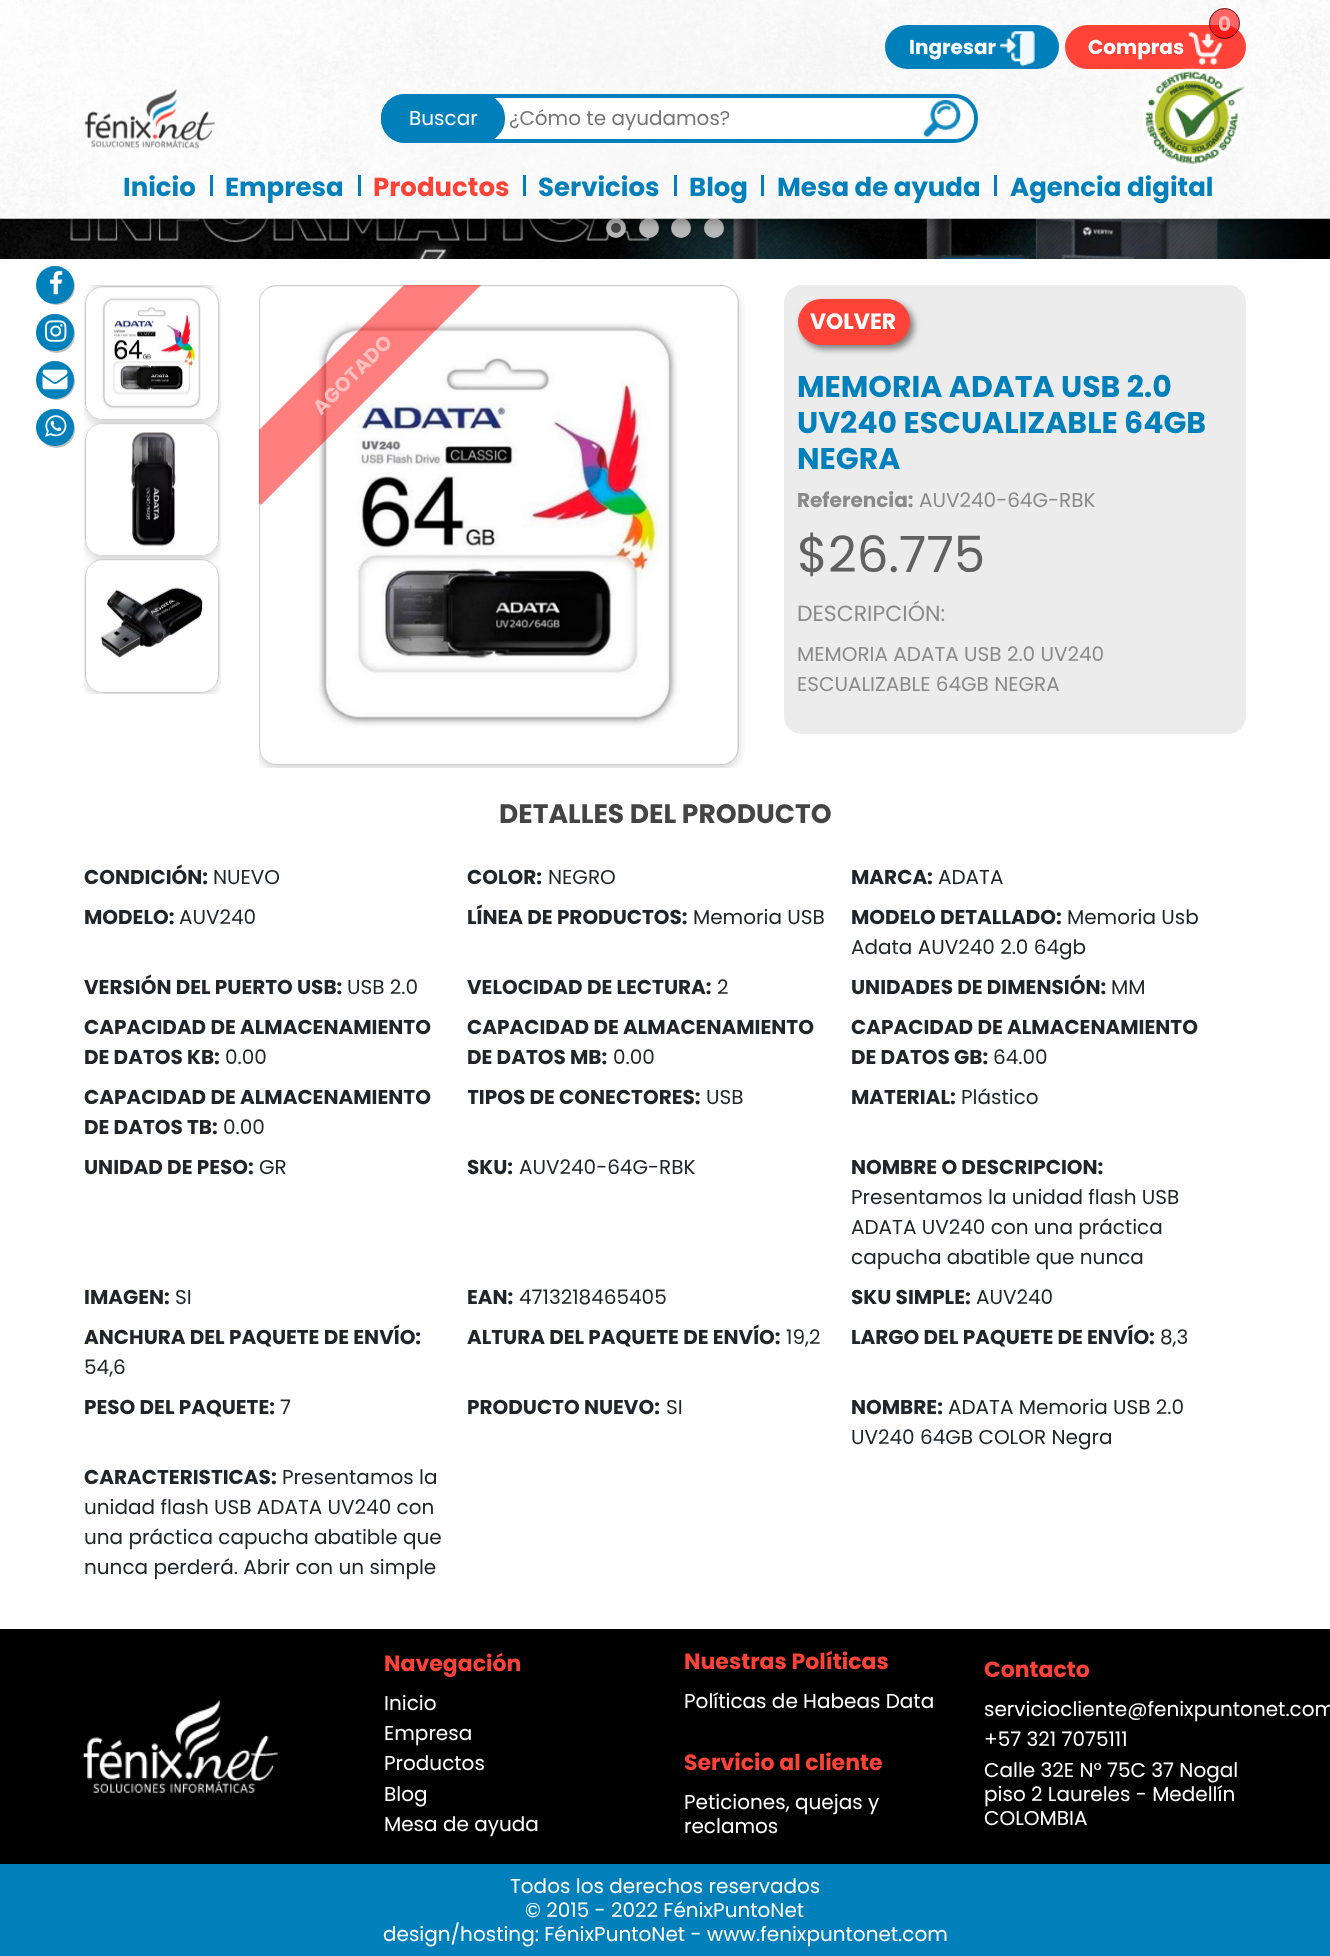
<svg xmlns="http://www.w3.org/2000/svg" width="1330" height="1956">
	<defs>
		<clipPath id="clip1"><rect x="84" y="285" width="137" height="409" /></clipPath>
		<clipPath id="clip2"><path d="M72 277H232V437H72ZM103 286H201C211 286 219 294 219 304V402C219 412 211 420 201 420H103C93 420 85 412 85 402V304C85 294 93 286 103 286Z" clip-rule="evenodd" /></clipPath>
		<clipPath id="clip3"><path d="M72 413H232V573H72ZM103 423H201C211 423 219 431 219 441V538C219 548 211 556 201 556H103C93 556 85 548 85 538V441C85 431 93 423 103 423Z" clip-rule="evenodd" /></clipPath>
		<clipPath id="clip4"><path d="M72 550H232V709H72ZM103 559H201C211 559 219 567 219 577V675C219 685 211 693 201 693H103C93 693 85 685 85 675V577C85 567 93 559 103 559Z" clip-rule="evenodd" /></clipPath>
		<clipPath id="clip5"><rect x="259" y="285" width="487" height="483" /></clipPath>
		<clipPath id="clip6"><rect x="259" y="285" width="487" height="483" /></clipPath>
		<clipPath id="clip7"><rect x="468" y="1073" width="383" height="70" /></clipPath>
	</defs>
	<rect width="100%" height="100%" fill="#FFFFFF" />
	<image x="0" y="218" width="1330" height="41" href="assets/img7.png" />
	<image x="0" y="218" width="1330" height="41" href="assets/img8.png" />
	<circle cx="616" cy="228" r="10" fill="#B7B7B7" />
	<circle cx="616" cy="228" r="5" fill="#434648" />
	<circle cx="649" cy="228" r="10" fill="#B7B7B7" />
	<circle cx="681" cy="228" r="10" fill="#B7B7B7" />
	<circle cx="714" cy="228" r="10" fill="#B7B7B7" />
	<rect x="0" y="4" width="1330" height="219" fill="#000000" fill-opacity="0.25" filter="blur(4px)" />
	<g clip-path="url(#clip1)">
		<rect x="85" y="154" width="134" height="134" rx="18" fill="#000000" fill-opacity="0.16" filter="blur(4px)" />
	</g>
	<image x="0" y="0" width="1330" height="219" href="assets/img1.png" />
	<rect x="885" y="25" width="174" height="44" rx="22" fill="#0080BB" />
	<text x="909" y="54" font-family="Poppins" font-size="20" font-weight="700" fill="#FFFFFF">Ingresar</text>
	<image x="1000" y="31" width="35" height="36" href="assets/img2.png" />
	<rect x="1065" y="25" width="181" height="44" rx="22" fill="#FF4338" />
	<image x="1188" y="32" width="35" height="33" href="assets/img3.png" />
	<circle cx="1224.5" cy="23.5" r="15.5" fill="#FB0202" fill-opacity="0.6" />
	<circle cx="1224.5" cy="23.5" r="15" fill="none" stroke="#000000" stroke-opacity="0.6" />
	<text x="1218" y="31" font-family="Poppins" font-size="20" font-weight="700" fill="#FEB6B5">0</text>
	<text x="1088" y="54" font-family="Poppins" font-size="20" font-weight="700" fill="#FFFFFF">Compras</text>
	<image x="84" y="89" width="131" height="60" href="assets/img4.png" />
	<rect x="383" y="96" width="593" height="45" rx="22" fill="#FFFFFF" stroke="#0080BB" stroke-width="4" />
	<rect x="383" y="96" width="120" height="45" rx="22" fill="#0080BB" stroke="#0080BB" stroke-width="4" />
	<text x="409" y="125" font-family="Poppins" font-size="20" fill="#FFFFFF">Buscar</text>
	<text x="509" y="125" font-family="Poppins" font-size="20" fill="#757575">¿Cómo te ayudamos?</text>
	<image x="923" y="100" width="39" height="38" href="assets/img5.png" />
	<image x="1143" y="68" width="102" height="99" href="assets/img6.png" />
	<text x="123" y="196" font-family="Poppins" font-size="26" font-weight="700" fill="#0080BB">Inicio</text>
	<rect x="210" y="175" width="3" height="21" fill="#0080BB" />
	<text x="225" y="196" font-family="Poppins" font-size="26" font-weight="700" fill="#0080BB">Empresa</text>
	<rect x="358" y="175" width="3" height="21" fill="#0080BB" />
	<text x="373" y="196" font-family="Poppins" font-size="26" font-weight="700" fill="#FF4338">Productos</text>
	<rect x="523" y="175" width="3" height="21" fill="#0080BB" />
	<text x="538" y="196" font-family="Poppins" font-size="26" font-weight="700" fill="#0080BB">Servicios</text>
	<rect x="674" y="175" width="3" height="21" fill="#0080BB" />
	<text x="689" y="196" font-family="Poppins" font-size="26" font-weight="700" fill="#0080BB">Blog</text>
	<rect x="761" y="175" width="3" height="21" fill="#0080BB" />
	<text x="777" y="196" font-family="Poppins" font-size="26" font-weight="700" fill="#0080BB">Mesa de ayuda</text>
	<rect x="994" y="175" width="3" height="21" fill="#0080BB" />
	<text x="1010" y="196" font-family="Poppins" font-size="26" font-weight="700" fill="#0080BB">Agencia digital</text>
	<rect x="38" y="268" width="37" height="37" rx="18.5" fill="#000000" fill-opacity="0.25" filter="blur(0.5px)" />
	<g clip-path="url(#clip1)">
		<g clip-path="url(#clip2)">
			<rect x="85" y="290" width="134" height="134" rx="18" fill="#000000" fill-opacity="0.16" filter="blur(4px)" />
		</g>
	</g>
	<circle cx="55" cy="285" r="19" fill="#0080BB" />
	<image x="50" y="271" width="13" height="24" href="assets/img9.png" />
	<rect x="38" y="315" width="37" height="38" rx="18.5" fill="#000000" fill-opacity="0.25" filter="blur(0.5px)" />
	<rect x="36" y="314" width="38" height="37" rx="18.5" fill="#0080BB" />
	<image x="45" y="320" width="22" height="22" href="assets/img10.png" />
	<rect x="38" y="363" width="37" height="37" rx="18.5" fill="#000000" fill-opacity="0.25" filter="blur(0.5px)" />
	<circle cx="55" cy="380" r="19" fill="#0080BB" />
	<image x="42" y="369" width="26" height="21" href="assets/img11.png" />
	<rect x="38" y="410" width="37" height="38" rx="18.5" fill="#000000" fill-opacity="0.25" filter="blur(0.5px)" />
	<rect x="85.5" y="286.5" width="133" height="133" rx="17.5" fill="none" stroke="#CCCCCC" />
	<image x="86" y="287" width="131" height="133" href="assets/img13.png" />
	<g clip-path="url(#clip1)">
		<g clip-path="url(#clip3)">
			<rect x="85" y="426" width="134" height="134" rx="18" fill="#000000" fill-opacity="0.16" filter="blur(4px)" />
		</g>
	</g>
	<rect x="36" y="409" width="38" height="37" rx="18.5" fill="#0080BB" />
	<image x="45" y="415" width="22" height="22" href="assets/img12.png" />
	<rect x="85.5" y="423.5" width="133" height="132" rx="17.5" fill="none" stroke="#CCCCCC" />
	<image x="86" y="423" width="131" height="133" href="assets/img14.png" />
	<g clip-path="url(#clip1)">
		<g clip-path="url(#clip4)">
			<rect x="85" y="563" width="134" height="133" rx="18" fill="#000000" fill-opacity="0.16" filter="blur(4px)" />
		</g>
	</g>
	<rect x="85.5" y="559.5" width="133" height="133" rx="17.5" fill="none" stroke="#CCCCCC" />
	<image x="86" y="560" width="131" height="132" href="assets/img15.png" />
	<g clip-path="url(#clip5)">
		<rect x="259" y="289" width="480" height="480" rx="18" fill="#000000" fill-opacity="0.16" filter="blur(4px)" />
	</g>
	<rect x="259.5" y="285.5" width="479" height="479" rx="17.5" fill="none" stroke="#CCCCCC" />
	<image x="260" y="287" width="477" height="477" href="assets/img16.png" />
	<g clip-path="url(#clip6)">
		<path d="M223 466L444 245L482 284L261 505Z" fill="#FF0000" fill-opacity="0.5" />
	</g>
	<text x="321" y="416" transform="rotate(-45 321 416)" font-family="Poppins" font-size="20" font-weight="700" fill="#FEBEBE">AGOTADO</text>
	<rect x="784" y="285" width="462" height="449" rx="18" fill="#ECECEC" />
	<rect x="801" y="303" width="113" height="46" rx="23" fill="#808080" filter="blur(3px)" />
	<rect x="798" y="299" width="112" height="46" rx="23" fill="#FF4338" />
	<text x="810" y="329" font-family="Poppins" font-size="22" font-weight="700" fill="#FFFFFF">VOLVER</text>
	<g font-family="Poppins" font-size="30" font-weight="700" fill="#0080BB">
		<text x="797" y="397">MEMORIA ADATA USB 2.0</text>
		<text x="797" y="433">UV240 ESCUALIZABLE 64GB</text>
		<text x="797" y="469">NEGRA</text>
	</g>
	<text x="797" y="507" font-family="Poppins" font-size="20" font-weight="700" fill="#8A8A8A">Referencia:</text>
	<text x="919" y="507" font-family="Poppins" font-size="20" fill="#8A8A8A">AUV240-64G-RBK</text>
	<text x="797" y="572" font-family="Poppins" font-size="50" fill="#616161">$26.775</text>
	<text x="797" y="621" font-family="Poppins" font-size="22" fill="#8A8A8A">DESCRIPCIÓN:</text>
	<g font-family="Poppins" font-size="20" fill="#8A8A8A">
		<text x="797" y="661">MEMORIA ADATA USB 2.0 UV240</text>
		<text x="797" y="691">ESCUALIZABLE 64GB NEGRA</text>
	</g>
	<text x="499" y="823" font-family="Poppins" font-size="26.6" font-weight="700" fill="#444444">DETALLES DEL PRODUCTO</text>
	<text x="84" y="884" font-family="Poppins" font-size="20" font-weight="700" fill="#212529">CONDICIÓN:</text>
	<text x="213" y="884" font-family="Poppins" font-size="20" fill="#212529">NUEVO</text>
	<text x="467" y="884" font-family="Poppins" font-size="20" font-weight="700" fill="#212529">COLOR:</text>
	<text x="548" y="884" font-family="Poppins" font-size="20" fill="#212529">NEGRO</text>
	<text x="851" y="884" font-family="Poppins" font-size="20" font-weight="700" fill="#212529">MARCA:</text>
	<text x="938" y="884" font-family="Poppins" font-size="20" fill="#212529">ADATA</text>
	<text x="84" y="924" font-family="Poppins" font-size="20" font-weight="700" fill="#212529">MODELO:</text>
	<text x="179" y="924" font-family="Poppins" font-size="20" fill="#212529">AUV240</text>
	<text x="467" y="924" font-family="Poppins" font-size="20" font-weight="700" fill="#212529">LÍNEA DE PRODUCTOS:</text>
	<text x="693" y="924" font-family="Poppins" font-size="20" fill="#212529">Memoria USB</text>
	<text x="851" y="924" font-family="Poppins" font-size="20" font-weight="700" fill="#212529">MODELO DETALLADO:</text>
	<g font-family="Poppins" font-size="20" fill="#212529">
		<text x="1067" y="924">Memoria Usb</text>
		<text x="851" y="954">Adata AUV240 2.0 64gb</text>
	</g>
	<text x="84" y="994" font-family="Poppins" font-size="20" font-weight="700" fill="#212529">VERSIÓN DEL PUERTO USB:</text>
	<text x="347" y="994" font-family="Poppins" font-size="20" fill="#212529">USB 2.0</text>
	<text x="467" y="994" font-family="Poppins" font-size="20" font-weight="700" fill="#212529">VELOCIDAD DE LECTURA:</text>
	<text x="717" y="994" font-family="Poppins" font-size="20" fill="#212529">2</text>
	<text x="851" y="994" font-family="Poppins" font-size="20" font-weight="700" fill="#212529">UNIDADES DE DIMENSIÓN:</text>
	<text x="1111" y="994" font-family="Poppins" font-size="20" fill="#212529">MM</text>
	<g font-family="Poppins" font-size="20" font-weight="700" fill="#212529">
		<text x="84" y="1034">CAPACIDAD DE ALMACENAMIENTO</text>
		<text x="84" y="1064">DE DATOS KB:</text>
	</g>
	<text x="225" y="1064" font-family="Poppins" font-size="20" fill="#212529">0.00</text>
	<g font-family="Poppins" font-size="20" font-weight="700" fill="#212529">
		<text x="467" y="1034">CAPACIDAD DE ALMACENAMIENTO</text>
		<text x="467" y="1064">DE DATOS MB:</text>
	</g>
	<text x="613" y="1064" font-family="Poppins" font-size="20" fill="#212529">0.00</text>
	<g font-family="Poppins" font-size="20" font-weight="700" fill="#212529">
		<text x="851" y="1034">CAPACIDAD DE ALMACENAMIENTO</text>
		<text x="851" y="1064">DE DATOS GB:</text>
	</g>
	<text x="993" y="1064" font-family="Poppins" font-size="20" fill="#212529">64.00</text>
	<g font-family="Poppins" font-size="20" font-weight="700" fill="#212529">
		<text x="84" y="1104">CAPACIDAD DE ALMACENAMIENTO</text>
		<text x="84" y="1134">DE DATOS TB:</text>
	</g>
	<text x="223" y="1134" font-family="Poppins" font-size="20" fill="#212529">0.00</text>
	<g clip-path="url(#clip7)">
		<text x="467" y="1104" font-family="Poppins" font-size="20" font-weight="700" fill="#212529">TIPOS DE CONECTORES:</text>
	</g>
	<text x="706" y="1104" font-family="Poppins" font-size="20" fill="#212529">USB</text>
	<text x="851" y="1104" font-family="Poppins" font-size="20" font-weight="700" fill="#212529">MATERIAL:</text>
	<text x="961" y="1104" font-family="Poppins" font-size="20" fill="#212529">Plástico</text>
	<text x="84" y="1174" font-family="Poppins" font-size="20" font-weight="700" fill="#212529">UNIDAD DE PESO:</text>
	<text x="259" y="1174" font-family="Poppins" font-size="20" fill="#212529">GR</text>
	<text x="467" y="1174" font-family="Poppins" font-size="20" font-weight="700" fill="#212529">SKU:</text>
	<text x="519" y="1174" font-family="Poppins" font-size="20" fill="#212529">AUV240-64G-RBK</text>
	<text x="851" y="1174" font-family="Poppins" font-size="20" font-weight="700" fill="#212529">NOMBRE O DESCRIPCION:</text>
	<g font-family="Poppins" font-size="20" fill="#212529">
		<text x="851" y="1204">Presentamos la unidad flash USB</text>
		<text x="851" y="1234">ADATA UV240 con una práctica</text>
		<text x="851" y="1264">capucha abatible que nunca</text>
	</g>
	<text x="84" y="1304" font-family="Poppins" font-size="20" font-weight="700" fill="#212529">IMAGEN:</text>
	<text x="175" y="1304" font-family="Poppins" font-size="20" fill="#212529">SI</text>
	<text x="467" y="1304" font-family="Poppins" font-size="20" font-weight="700" fill="#212529">EAN:</text>
	<text x="519" y="1304" font-family="Poppins" font-size="20" fill="#212529">4713218465405</text>
	<text x="851" y="1304" font-family="Poppins" font-size="20" font-weight="700" fill="#212529">SKU SIMPLE:</text>
	<text x="976" y="1304" font-family="Poppins" font-size="20" fill="#212529">AUV240</text>
	<text x="84" y="1344" font-family="Poppins" font-size="20" font-weight="700" fill="#212529">ANCHURA DEL PAQUETE DE ENVÍO:</text>
	<text x="84" y="1374" font-family="Poppins" font-size="20" fill="#212529">54,6</text>
	<text x="467" y="1344" font-family="Poppins" font-size="20" font-weight="700" fill="#212529">ALTURA DEL PAQUETE DE ENVÍO:</text>
	<text x="786" y="1344" font-family="Poppins" font-size="20" fill="#212529">19,2</text>
	<text x="851" y="1344" font-family="Poppins" font-size="20" font-weight="700" fill="#212529">LARGO DEL PAQUETE DE ENVÍO:</text>
	<text x="1160" y="1344" font-family="Poppins" font-size="20" fill="#212529">8,3</text>
	<text x="84" y="1414" font-family="Poppins" font-size="20" font-weight="700" fill="#212529">PESO DEL PAQUETE:</text>
	<text x="280" y="1414" font-family="Poppins" font-size="20" fill="#212529">7</text>
	<text x="467" y="1414" font-family="Poppins" font-size="20" font-weight="700" fill="#212529">PRODUCTO NUEVO:</text>
	<text x="666" y="1414" font-family="Poppins" font-size="20" fill="#212529">SI</text>
	<text x="851" y="1414" font-family="Poppins" font-size="20" font-weight="700" fill="#212529">NOMBRE:</text>
	<g font-family="Poppins" font-size="20" fill="#212529">
		<text x="948" y="1414">ADATA Memoria USB 2.0</text>
		<text x="851" y="1444">UV240 64GB COLOR Negra</text>
	</g>
	<text x="84" y="1484" font-family="Poppins" font-size="20" font-weight="700" fill="#212529">CARACTERISTICAS:</text>
	<g font-family="Poppins" font-size="20" fill="#212529">
		<text x="282" y="1484">Presentamos la</text>
		<text x="84" y="1514">unidad flash USB ADATA UV240 con</text>
		<text x="84" y="1544">una práctica capucha abatible que</text>
		<text x="84" y="1574">nunca perderá. Abrir con un simple</text>
	</g>
	<rect x="0" y="1864" width="1330" height="92" fill="#0080BB" />
	<rect x="0" y="1629" width="1330" height="235" fill="#000000" />
	<image x="83" y="1700" width="195" height="93" href="assets/img17.png" />
	<text x="384" y="1671" font-family="Poppins" font-size="22" font-weight="700" fill="#FF4338">Navegación</text>
	<g font-family="Poppins" font-size="20" fill="#FFFFFF">
		<text x="384" y="1710">Inicio</text>
		<text x="384" y="1740">Empresa</text>
		<text x="384" y="1770">Productos</text>
		<text x="384" y="1801">Blog</text>
		<text x="384" y="1831">Mesa de ayuda</text>
	</g>
	<text x="684" y="1669" font-family="Poppins" font-size="22" font-weight="700" fill="#FF4338">Nuestras Políticas</text>
	<text x="684" y="1708" font-family="Poppins" font-size="20" fill="#FFFFFF">Políticas de Habeas Data</text>
	<text x="684" y="1770" font-family="Poppins" font-size="22" font-weight="700" fill="#FF4338">Servicio al cliente</text>
	<g font-family="Poppins" font-size="20" fill="#FFFFFF">
		<text x="684" y="1809">Peticiones, quejas y</text>
		<text x="684" y="1833">reclamos</text>
	</g>
	<text x="984" y="1677" font-family="Poppins" font-size="22" font-weight="700" fill="#FF4338">Contacto</text>
	<g font-family="Poppins" font-size="20" fill="#FFFFFF">
		<text x="984" y="1716">serviciocliente@fenixpuntonet.com</text>
		<text x="984" y="1746">+57 321 7075111</text>
		<text x="984" y="1777">Calle 32E N° 75C 37 Nogal</text>
		<text x="984" y="1801">piso 2 Laureles - Medellín</text>
		<text x="984" y="1825">COLOMBIA</text>
		<text x="510" y="1893">Todos los derechos reservados</text>
		<text x="525" y="1917">© 2015 - 2022 FénixPuntoNet</text>
		<text x="383" y="1941">design/hosting: FénixPuntoNet - www.fenixpuntonet.com</text>
	</g>
</svg>
